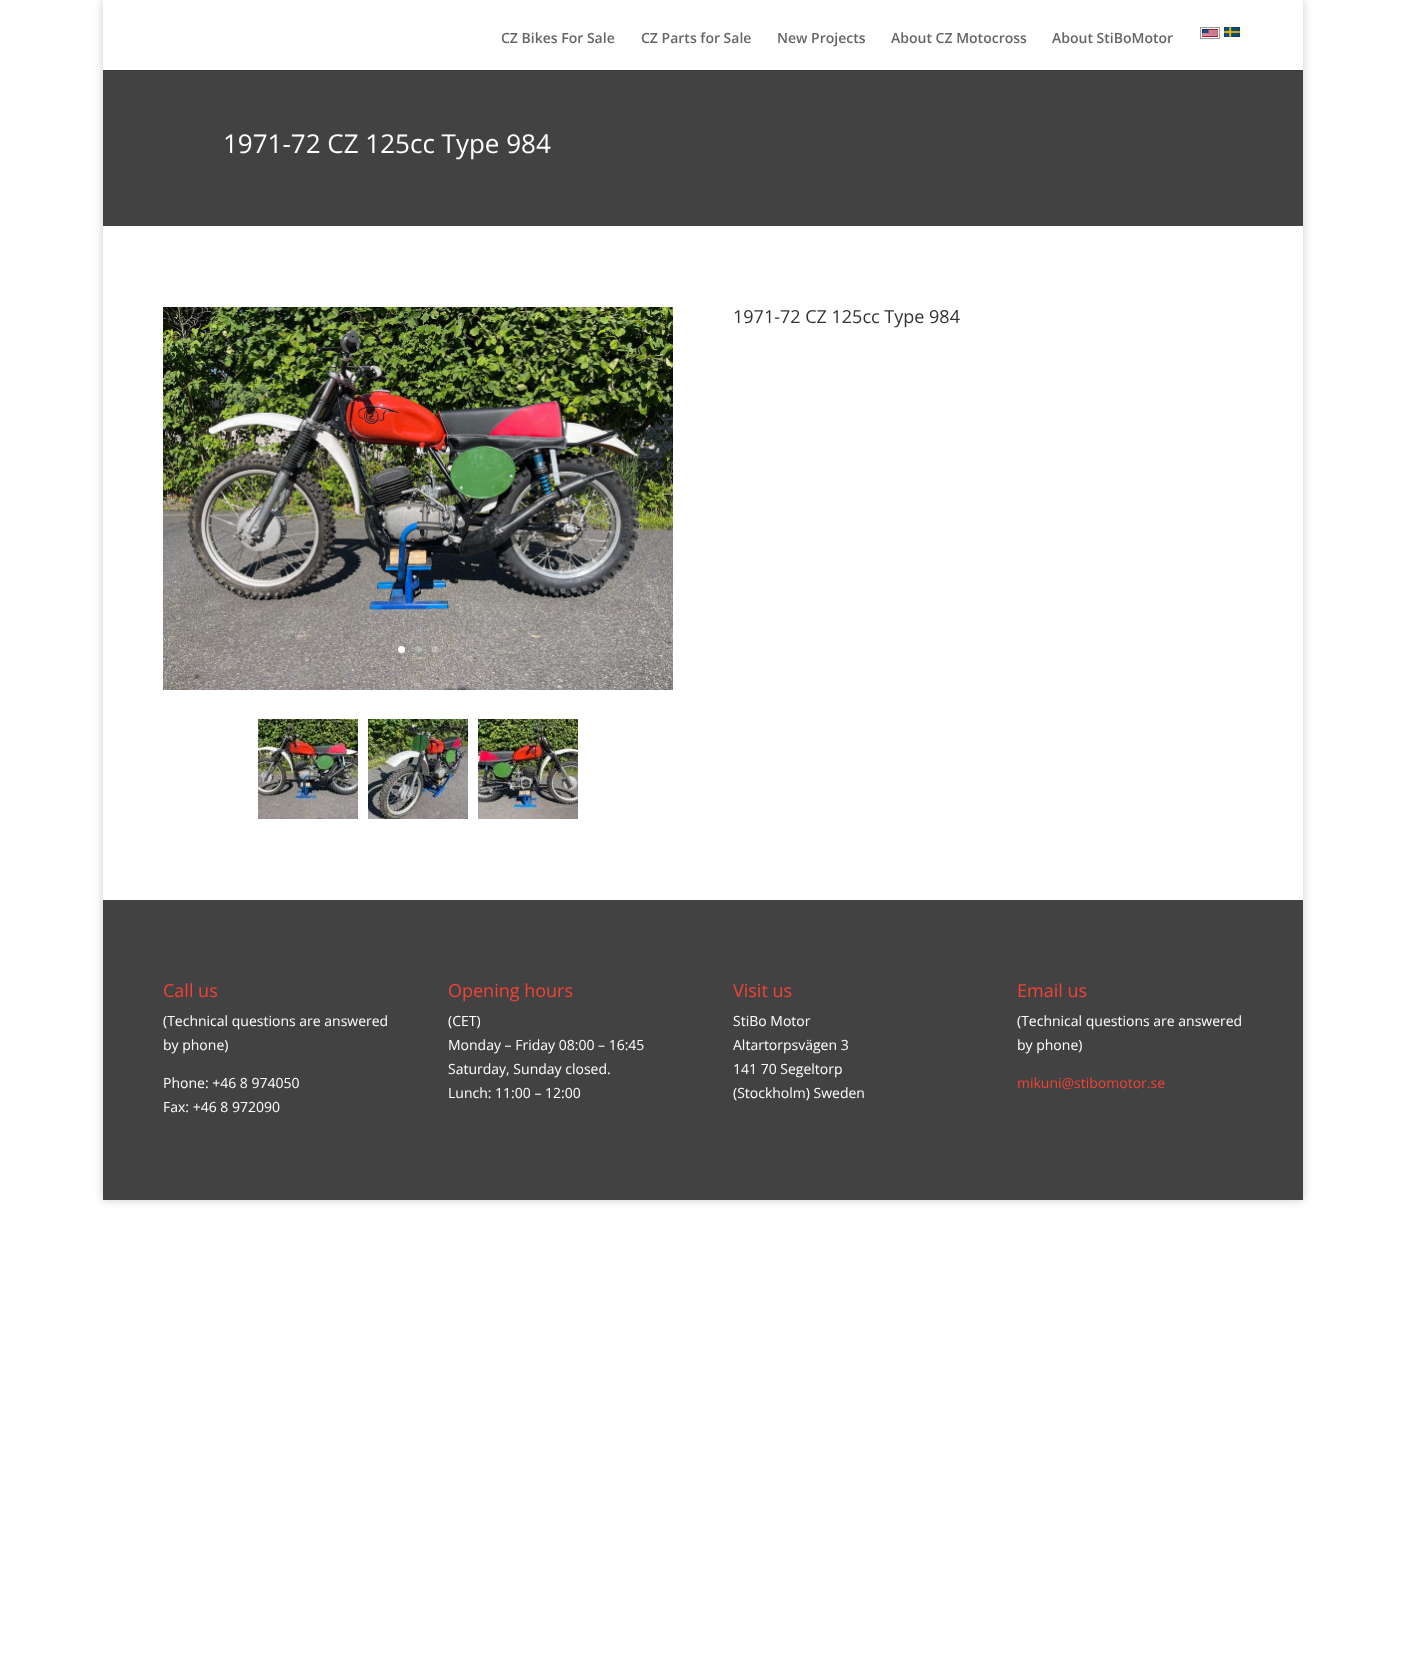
<svg xmlns="http://www.w3.org/2000/svg" width="1406" height="1666">
	<defs>
		<clipPath id="clip1"><path d="M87 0H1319V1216H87ZM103 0H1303V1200H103Z" clip-rule="evenodd" /></clipPath>
	</defs>
	<rect width="100%" height="100%" fill="#FFFFFF" />
	<g clip-path="url(#clip1)">
		<rect x="103" y="0" width="1200" height="1200" fill="#000000" fill-opacity="0.2" filter="blur(5px)" />
	</g>
	<rect x="103" y="70" width="1200" height="1" fill="#3B3B3B" />
	<g font-family="Open Sans" font-size="14" font-weight="600" fill="#666666">
		<text x="501" y="43">CZ Bikes For Sale</text>
		<text x="641" y="43">CZ Parts for Sale</text>
		<text x="777" y="43">New Projects</text>
		<text x="891" y="43">About CZ Motocross</text>
		<text x="1052" y="43">About StiBoMotor</text>
	</g>
	<rect x="1200.5" y="27.5" width="19" height="11" fill="none" stroke="#9C9C9C" />
	<image x="1202" y="29" width="16" height="8" href="assets/img1.png" />
	<image x="1224" y="27" width="16" height="10" href="assets/img2.png" />
	<rect x="103" y="71" width="1200" height="155" fill="#424242" />
	<text x="223" y="153" font-family="Open Sans" font-size="26" fill="#FFFFFF">1971-72 CZ 125cc Type 984</text>
	<image x="163" y="307" width="510" height="383" href="assets/img3.png" />
	<circle cx="401.5" cy="649.5" r="3.5" fill="#FFFFFF" />
	<circle cx="418.5" cy="649.5" r="3.5" fill="#FFFFFF" fill-opacity="0.25" />
	<circle cx="435.5" cy="649.5" r="3.5" fill="#FFFFFF" fill-opacity="0.25" />
	<image x="258" y="719" width="100" height="100" href="assets/img4.png" />
	<image x="368" y="719" width="100" height="100" href="assets/img5.png" />
	<image x="478" y="719" width="100" height="100" href="assets/img6.png" />
	<text x="733" y="323" font-family="Open Sans" font-size="18" fill="#333333">1971-72 CZ 125cc Type 984</text>
	<rect x="103" y="900" width="1200" height="300" fill="#424242" />
	<text x="163" y="997" font-family="Open Sans" font-size="18" fill="#F44336">Call us</text>
	<g font-family="Open Sans" font-size="14" fill="#FFFFFF">
		<text x="163" y="1026">(Technical questions are answered</text>
		<text x="163" y="1050">by phone)</text>
		<text x="163" y="1088">Phone: +46 8 974050</text>
		<text x="163" y="1112">Fax: +46 8 972090</text>
	</g>
	<text x="448" y="997" font-family="Open Sans" font-size="18" fill="#F44336">Opening hours</text>
	<g font-family="Open Sans" font-size="14" fill="#FFFFFF">
		<text x="448" y="1026">(CET)</text>
		<text x="448" y="1050">Monday – Friday 08:00 – 16:45</text>
		<text x="448" y="1074">Saturday, Sunday closed.</text>
		<text x="448" y="1098">Lunch: 11:00 – 12:00</text>
	</g>
	<text x="733" y="997" font-family="Open Sans" font-size="18" fill="#F44336">Visit us</text>
	<g font-family="Open Sans" font-size="14" fill="#FFFFFF">
		<text x="733" y="1026">StiBo Motor</text>
		<text x="733" y="1050">Altartorpsvägen 3</text>
		<text x="733" y="1074">141 70 Segeltorp</text>
		<text x="733" y="1098">(Stockholm) Sweden</text>
	</g>
	<text x="1017" y="997" font-family="Open Sans" font-size="18" fill="#F44336">Email us</text>
	<g font-family="Open Sans" font-size="14" fill="#FFFFFF">
		<text x="1017" y="1026">(Technical questions are answered</text>
		<text x="1017" y="1050">by phone)</text>
	</g>
	<text x="1017" y="1088" font-family="Open Sans" font-size="14" fill="#F44336">mikuni@stibomotor.se</text>
</svg>
